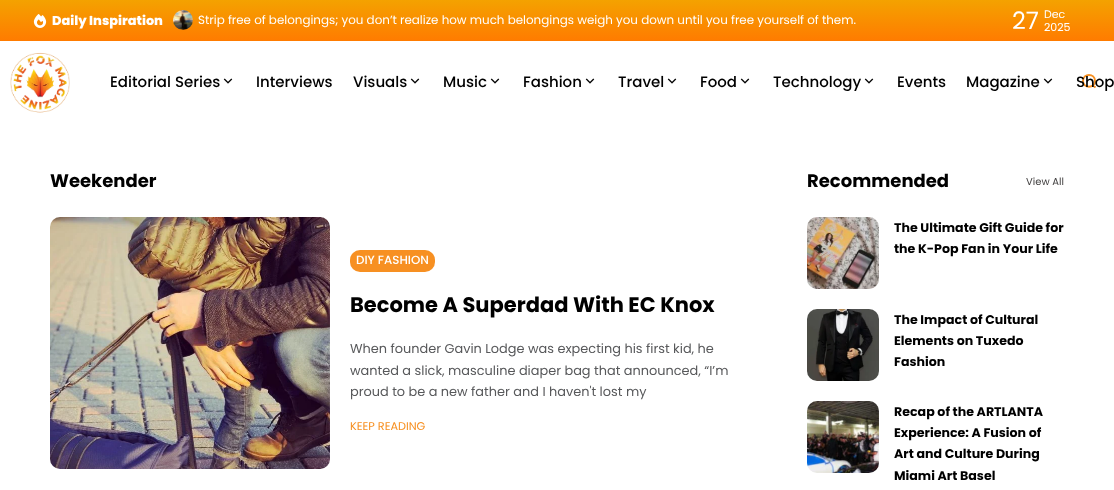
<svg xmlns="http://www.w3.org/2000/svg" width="1114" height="490">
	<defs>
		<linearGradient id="g1" gradientUnits="userSpaceOnUse" x1="557" y1="0" x2="557" y2="41"><stop offset="0" stop-color="#F4A200" /><stop offset="1" stop-color="#FF7B00" /></linearGradient>
	</defs>
	<rect width="100%" height="100%" fill="#FFFFFF" />
	<rect x="0" y="0" width="1114" height="41" fill="url(#g1)" />
	<image x="33" y="14" width="14" height="14" href="assets/img1.png" />
	<text x="52" y="25" font-family="Poppins" font-size="12.9" font-weight="800" fill="#FFFFFF">Daily Inspiration</text>
	<image x="173" y="10" width="20" height="20" href="assets/img2.png" />
	<text x="198" y="24" font-family="Poppins" font-size="11.9" fill="#FFFFFF">Strip free of belongings; you don’t realize how much belongings weigh you down until you free yourself of them.</text>
	<text x="1012" y="29" font-family="Poppins" font-size="24" fill="#FFFFFF">27</text>
	<g font-family="Poppins" font-size="11" fill="#FFFFFF">
		<text x="1044" y="18">Dec</text>
		<text x="1044" y="31">2025</text>
	</g>
	<path d="M1083 81C1083 88.5 1095 88.5 1095 81C1095 73 1083 73 1083 81M1093 85.5L1095.5 87.5" fill="none" stroke="#F79022" stroke-width="2" />
	<image x="10" y="52" width="60" height="61" href="assets/img3.png" />
	<text x="110" y="87" font-family="Poppins" font-size="15" font-weight="500" fill="#000000">Editorial Series</text>
	<image x="223" y="78" width="10" height="6" href="assets/img4.png" />
	<g font-family="Poppins" font-size="15" font-weight="500" fill="#000000">
		<text x="256" y="87">Interviews</text>
		<text x="353" y="87">Visuals</text>
	</g>
	<image x="410" y="78" width="10" height="6" href="assets/img4.png" />
	<text x="443" y="87" font-family="Poppins" font-size="15" font-weight="500" fill="#000000">Music</text>
	<image x="490" y="78" width="10" height="6" href="assets/img4.png" />
	<text x="523" y="87" font-family="Poppins" font-size="15" font-weight="500" fill="#000000">Fashion</text>
	<image x="585" y="78" width="10" height="6" href="assets/img4.png" />
	<text x="618" y="87" font-family="Poppins" font-size="15" font-weight="500" fill="#000000">Travel</text>
	<image x="667" y="78" width="10" height="6" href="assets/img4.png" />
	<text x="700" y="87" font-family="Poppins" font-size="15" font-weight="500" fill="#000000">Food</text>
	<image x="740" y="78" width="10" height="6" href="assets/img4.png" />
	<text x="773" y="87" font-family="Poppins" font-size="15" font-weight="500" fill="#000000">Technology</text>
	<image x="864" y="78" width="10" height="6" href="assets/img4.png" />
	<g font-family="Poppins" font-size="15" font-weight="500" fill="#000000">
		<text x="897" y="87">Events</text>
		<text x="966" y="87">Magazine</text>
	</g>
	<image x="1043" y="78" width="10" height="6" href="assets/img4.png" />
	<text x="1076" y="87" font-family="Poppins" font-size="15" font-weight="500" fill="#000000">Shop</text>
	<text x="50" y="187" font-family="Poppins" font-size="18" font-weight="700" fill="#000000">Weekender</text>
	<image x="50" y="217" width="280" height="252" href="assets/img5.png" />
	<rect x="350" y="250" width="85" height="22" rx="10" fill="#F79022" />
	<text x="356" y="264" font-family="Poppins" font-size="11.9" font-weight="500" fill="#FFFFFF">DIY FASHION</text>
	<text x="350" y="312" font-family="Poppins" font-size="21" font-weight="700" fill="#000000">Become A Superdad With EC Knox</text>
	<g font-family="Poppins" font-size="12.9" fill="#58595B">
		<text x="350" y="353">When founder Gavin Lodge was expecting his first kid, he</text>
		<text x="350" y="375">wanted a slick, masculine diaper bag that announced, “I’m</text>
		<text x="350" y="396">proud to be a new father and I haven't lost my</text>
	</g>
	<text x="350" y="430" font-family="Poppins" font-size="11.25" fill="#F79022">KEEP READING</text>
	<text x="807" y="187" font-family="Poppins" font-size="18" font-weight="700" fill="#000000">Recommended</text>
	<text x="1026" y="185" font-family="Poppins" font-size="10" fill="#434141">View All</text>
	<image x="807" y="217" width="72" height="72" href="assets/img6.png" />
	<g font-family="Poppins" font-size="12.6" font-weight="700" fill="#000000">
		<text x="894" y="232">The Ultimate Gift Guide for</text>
		<text x="894" y="253">the K-Pop Fan in Your Life</text>
	</g>
	<image x="807" y="309" width="72" height="72" href="assets/img7.png" />
	<g font-family="Poppins" font-size="12.6" font-weight="700" fill="#000000">
		<text x="894" y="324">The Impact of Cultural</text>
		<text x="894" y="345">Elements on Tuxedo</text>
		<text x="894" y="366">Fashion</text>
	</g>
	<image x="807" y="401" width="72" height="72" href="assets/img8.png" />
	<g font-family="Poppins" font-size="12.6" font-weight="700" fill="#000000">
		<text x="894" y="416">Recap of the ARTLANTA</text>
		<text x="894" y="437">Experience: A Fusion of</text>
		<text x="894" y="458">Art and Culture During</text>
		<text x="894" y="480">Miami Art Basel</text>
	</g>
</svg>
